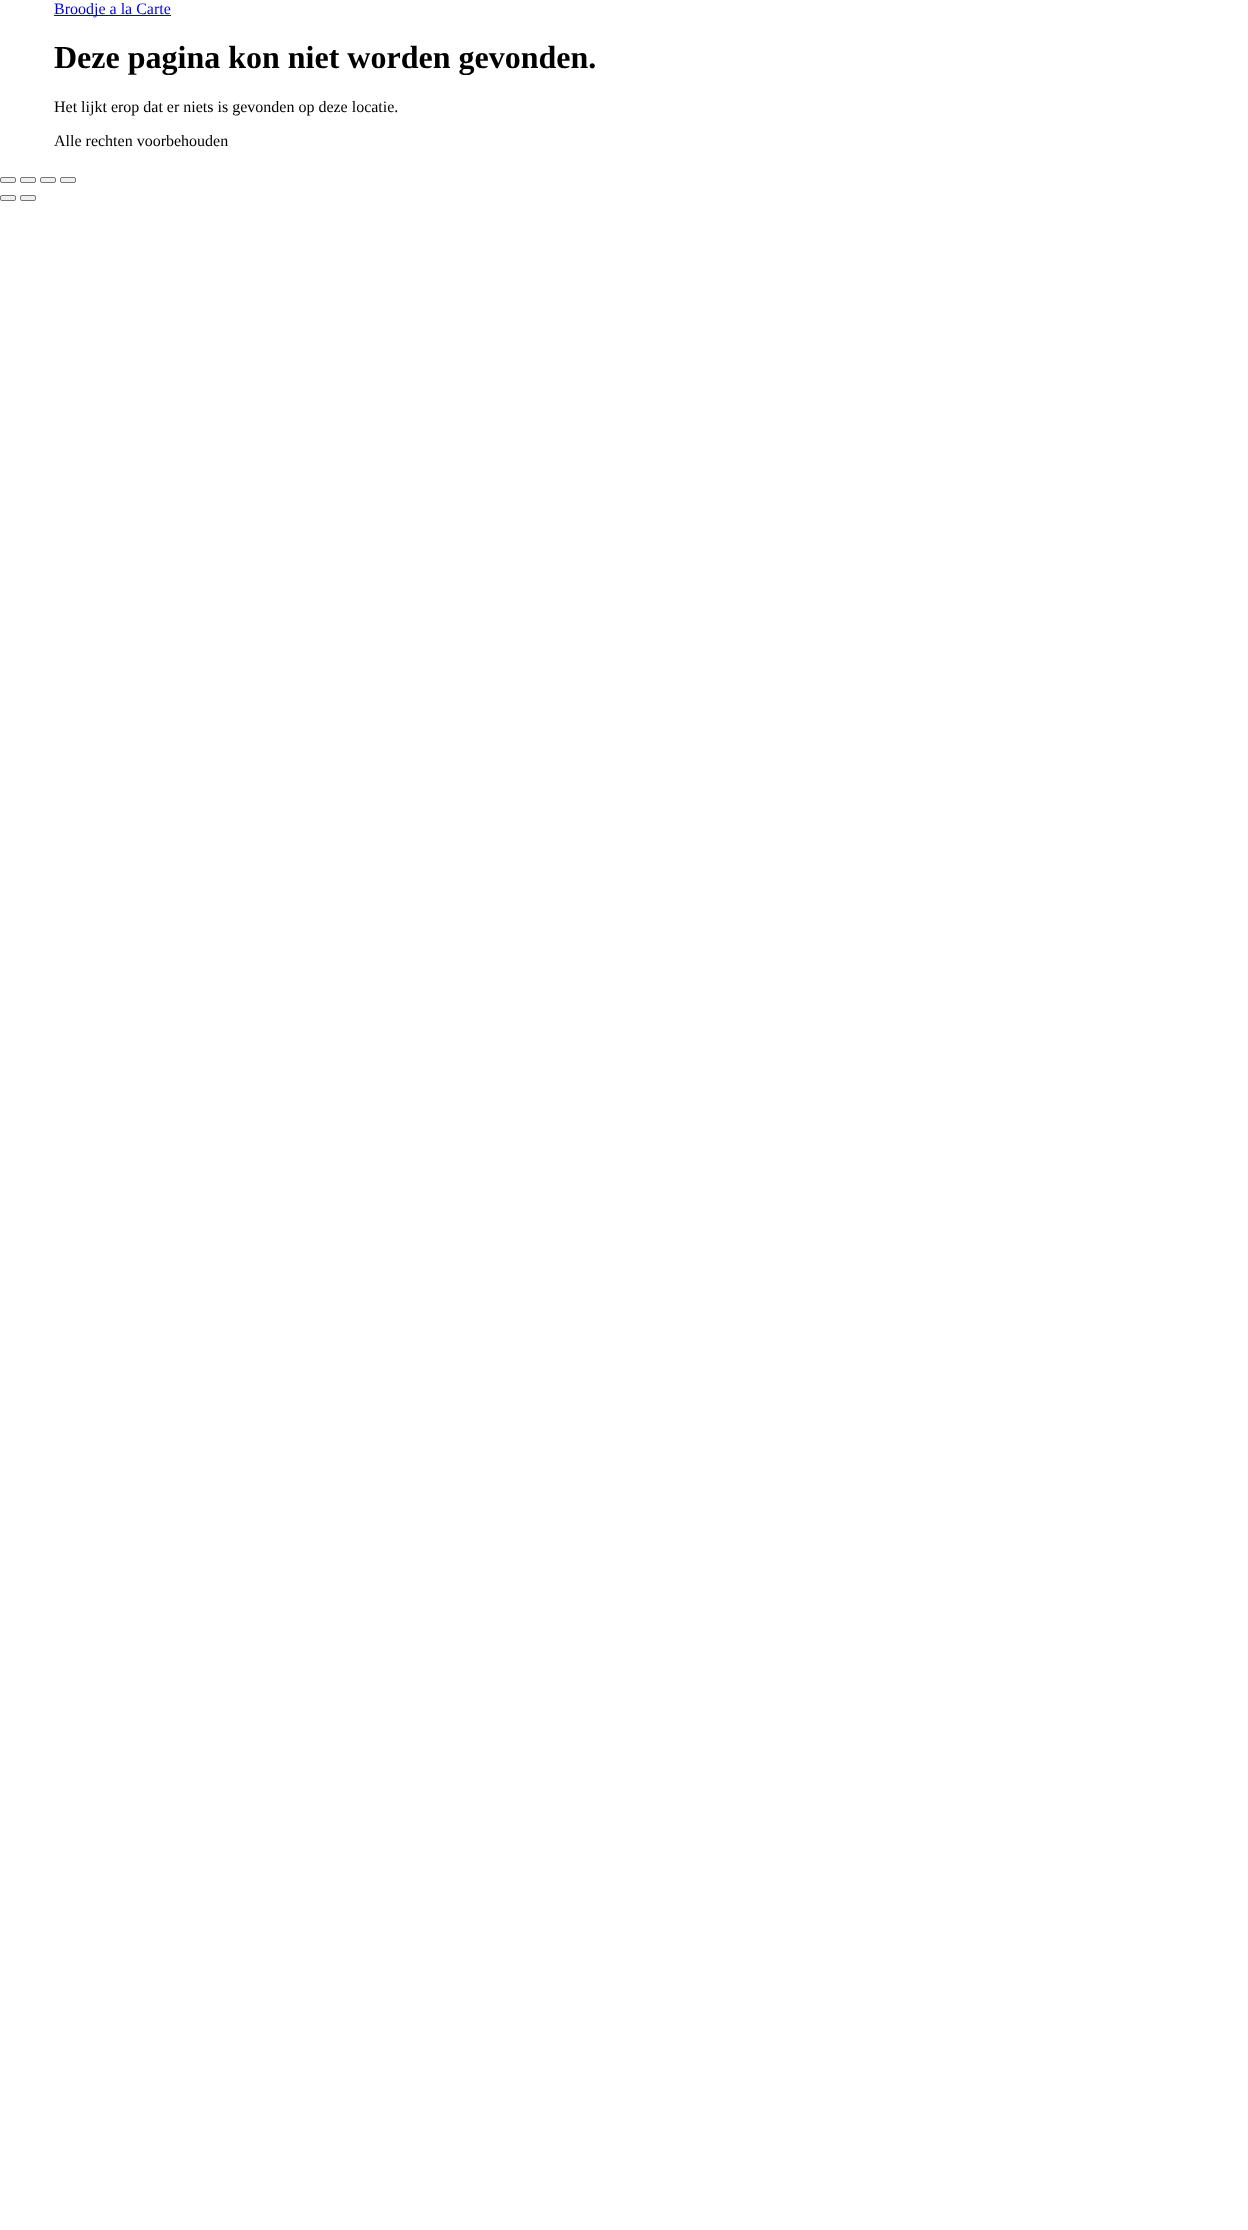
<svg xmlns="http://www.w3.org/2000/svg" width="1248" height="2230">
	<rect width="100%" height="100%" fill="#FFFFFF" />
	<rect x="54" y="15" width="117" height="1" fill="#0000EE" />
	<text x="54" y="14" font-family="Liberation Serif" font-size="16" fill="#0000EE">Broodje a la Carte</text>
	<text x="54" y="68" font-family="Liberation Serif" font-size="32" font-weight="700" fill="#000000">Deze pagina kon niet worden gevonden.</text>
	<g font-family="Liberation Serif" font-size="16" fill="#000000">
		<text x="54" y="112">Het lijkt erop dat er niets is gevonden op deze locatie.</text>
		<text x="54" y="146">Alle rechten voorbehouden</text>
	</g>
	<rect x="0.5" y="177.5" width="15" height="5" rx="1.5" fill="#EFEFEF" stroke="#767676" />
	<rect x="20.5" y="177.5" width="15" height="5" rx="1.5" fill="#EFEFEF" stroke="#767676" />
	<rect x="40.5" y="177.5" width="15" height="5" rx="1.5" fill="#EFEFEF" stroke="#767676" />
	<rect x="60.5" y="177.5" width="15" height="5" rx="1.5" fill="#EFEFEF" stroke="#767676" />
	<rect x="0.5" y="195.5" width="15" height="5" rx="1.5" fill="#EFEFEF" stroke="#767676" />
	<rect x="20.5" y="195.5" width="15" height="5" rx="1.5" fill="#EFEFEF" stroke="#767676" />
</svg>
